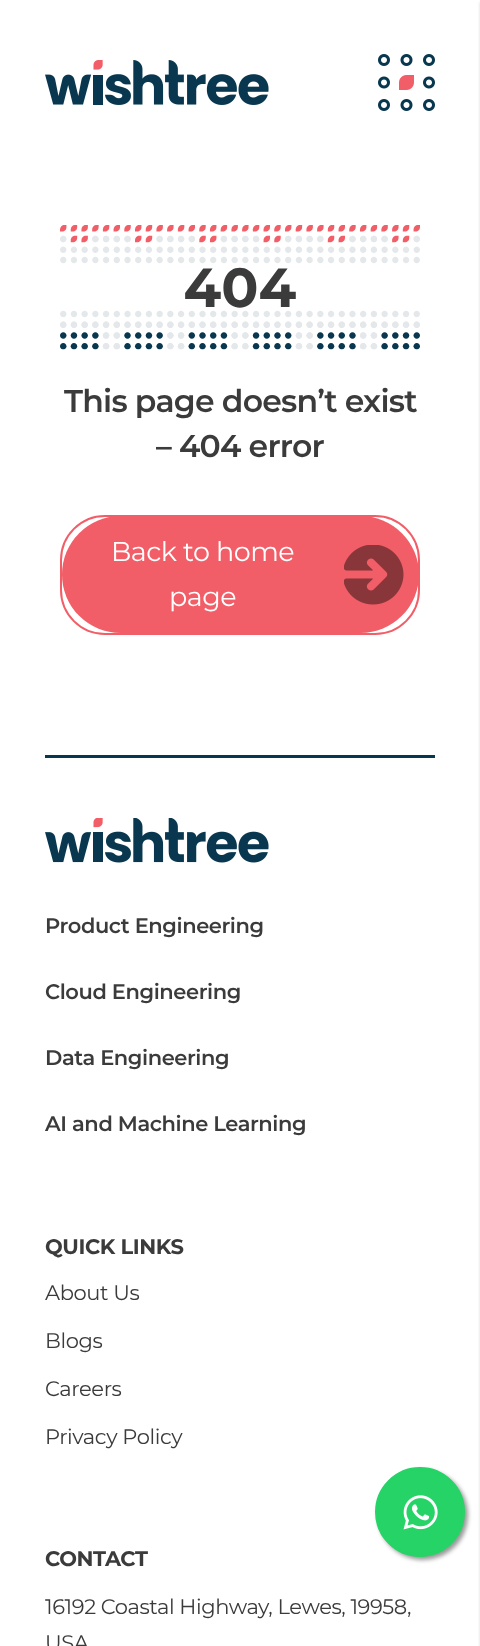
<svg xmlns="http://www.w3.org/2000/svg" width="480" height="1646">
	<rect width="100%" height="100%" fill="#FFFFFF" />
	<image x="45" y="60" width="224" height="45" href="assets/img1.png" />
	<image x="378" y="54" width="57" height="57" href="assets/img2.png" />
	<rect x="480" y="2" width="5" height="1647" fill="#000000" fill-opacity="0.15" filter="blur(1.5px)" />
	<image x="60" y="225" width="360" height="125" href="assets/img3.png" />
	<g font-family="Montserrat" font-size="31.5" font-weight="600" letter-spacing="-0.75" fill="#3B3B3B">
		<text x="64" y="412">This page doesn’t exist</text>
		<text x="156" y="457">– 404 error</text>
	</g>
	<rect x="61" y="516" width="358" height="118" rx="44" fill="none" stroke="#F25E67" stroke-width="2" />
	<rect x="62" y="516" width="357" height="117" rx="58.5" fill="#F25E67" />
	<g font-family="Montserrat" font-size="27" letter-spacing="-0.5" fill="#FFFFFF">
		<text x="111" y="561">Back to home</text>
		<text x="169" y="606">page</text>
	</g>
	<image x="344" y="545" width="60" height="60" href="assets/img4.png" />
	<rect x="45" y="755" width="390" height="3" fill="#08374F" />
	<image x="45" y="818" width="224" height="45" href="assets/img5.png" />
	<g font-family="Montserrat" font-size="21" font-weight="600" letter-spacing="-0.4" fill="#3B3B3B">
		<text x="45" y="933">Product Engineering</text>
		<text x="45" y="999">Cloud Engineering</text>
		<text x="45" y="1065">Data Engineering</text>
		<text x="45" y="1131">AI and Machine Learning</text>
	</g>
	<text x="45" y="1254" font-family="Montserrat" font-size="21" font-weight="700" letter-spacing="-0.4" fill="#3B3B3B">QUICK LINKS</text>
	<g font-family="Montserrat" font-size="21" letter-spacing="-0.4" fill="#3B3B3B">
		<text x="45" y="1300">About Us</text>
		<text x="45" y="1348">Blogs</text>
		<text x="45" y="1396">Careers</text>
		<text x="45" y="1444">Privacy Policy</text>
	</g>
	<text x="45" y="1566" font-family="Montserrat" font-size="21" font-weight="700" letter-spacing="-0.4" fill="#3B3B3B">CONTACT</text>
	<g font-family="Montserrat" font-size="21" letter-spacing="-0.4" fill="#3B3B3B">
		<text x="45" y="1614">16192 Coastal Highway, Lewes, 19958,</text>
		<text x="45" y="1650">USA</text>
	</g>
	<rect x="378" y="1470" width="90" height="90" rx="45" fill="#999999" filter="blur(2px)" />
	<circle cx="420" cy="1512" r="43.5" fill="#25D366" stroke="#25D366" stroke-width="3" />
	<image x="403" y="1495" width="35" height="35" href="assets/img6.png" />
</svg>
